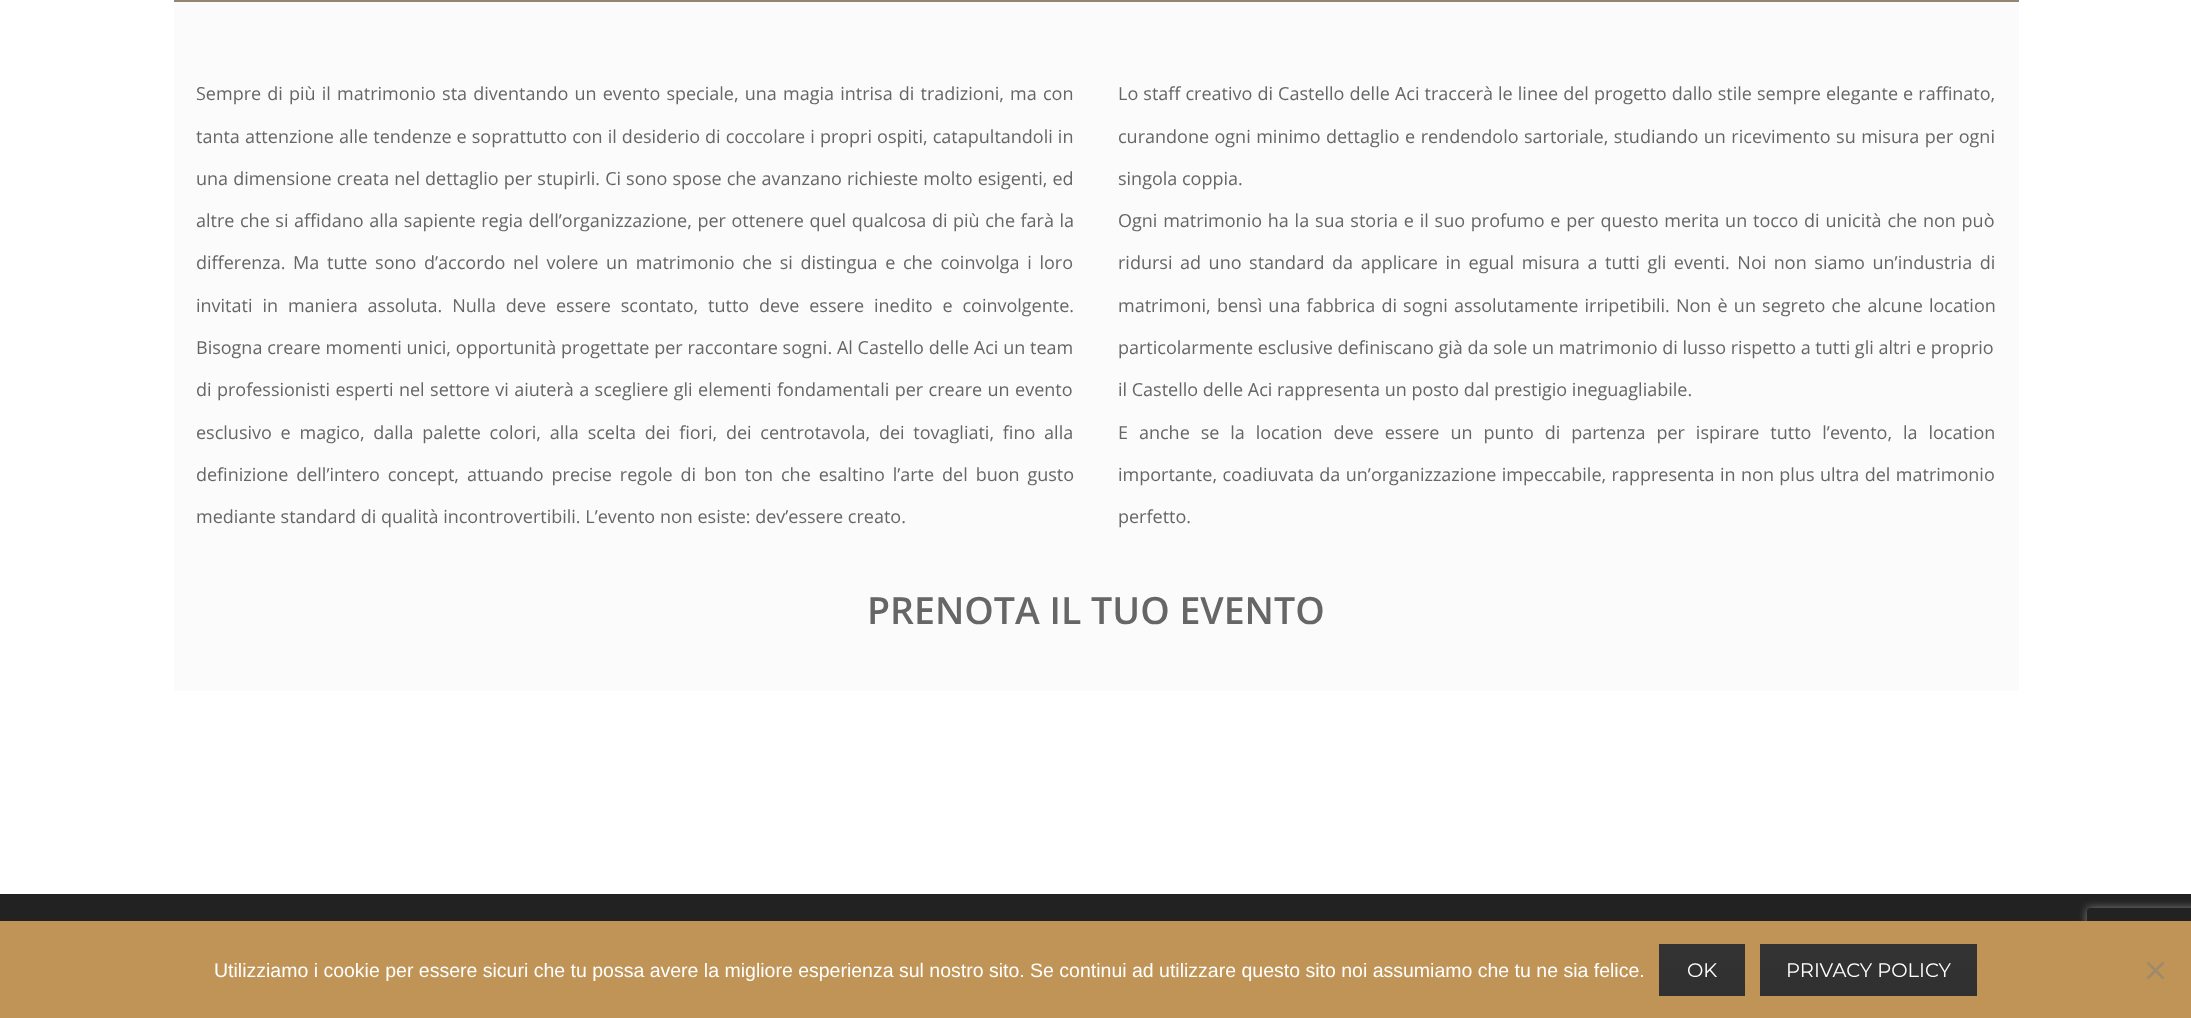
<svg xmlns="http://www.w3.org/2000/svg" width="2191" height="1018">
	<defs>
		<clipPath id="clip1"><path d="M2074 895H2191V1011H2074ZM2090 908H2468C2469.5 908 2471 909.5 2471 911V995C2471 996.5 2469.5 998 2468 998H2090C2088.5 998 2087 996.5 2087 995V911C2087 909.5 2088.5 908 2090 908Z" clip-rule="evenodd" /></clipPath>
		<linearGradient id="g1" gradientUnits="userSpaceOnUse" x1="1702" y1="944" x2="1702" y2="996"><stop offset="0" stop-color="#333333" /><stop offset="1" stop-color="#303030" /></linearGradient>
		<linearGradient id="g2" gradientUnits="userSpaceOnUse" x1="1868" y1="944" x2="1868" y2="996"><stop offset="0" stop-color="#333333" /><stop offset="1" stop-color="#303030" /></linearGradient>
	</defs>
	<rect width="100%" height="100%" fill="#FFFFFF" />
	<rect x="174" y="0" width="1845" height="2" fill="#928774" />
	<rect x="174" y="2" width="1845" height="689" fill="#FBFBFB" />
	<g font-family="Open Sans" font-size="18" fill="#666666">
		<text x="196" y="100" word-spacing="1.5">Sempre di più il matrimonio sta diventando un evento speciale, una magia intrisa di tradizioni, ma con</text>
		<text x="196" y="143" word-spacing="0.4">tanta attenzione alle tendenze e soprattutto con il desiderio di coccolare i propri ospiti, catapultandoli in</text>
		<text x="196" y="185" word-spacing="0.4">una dimensione creata nel dettaglio per stupirli. Ci sono spose che avanzano richieste molto esigenti, ed</text>
		<text x="196" y="227" word-spacing="0.9">altre che si affidano alla sapiente regia dell’organizzazione, per ottenere quel qualcosa di più che farà la</text>
		<text x="196" y="269" word-spacing="3">differenza. Ma tutte sono d’accordo nel volere un matrimonio che si distingua e che coinvolga i loro</text>
		<text x="196" y="312" word-spacing="5.25">invitati in maniera assoluta. Nulla deve essere scontato, tutto deve essere inedito e coinvolgente.</text>
		<text x="196" y="354" word-spacing="0.1">Bisogna creare momenti unici, opportunità progettate per raccontare sogni. Al Castello delle Aci un team</text>
		<text x="196" y="396" word-spacing="0.75">di professionisti esperti nel settore vi aiuterà a scegliere gli elementi fondamentali per creare un evento</text>
		<text x="196" y="439" word-spacing="4.1">esclusivo e magico, dalla palette colori, alla scelta dei fiori, dei centrotavola, dei tovagliati, fino alla</text>
		<text x="196" y="481" word-spacing="3.25">definizione dell’intero concept, attuando precise regole di bon ton che esaltino l’arte del buon gusto</text>
		<text x="196" y="523">mediante standard di qualità incontrovertibili. L’evento non esiste: dev’essere creato.</text>
		<text x="1118" y="100" word-spacing="0.4">Lo staff creativo di Castello delle Aci traccerà le linee del progetto dallo stile sempre elegante e raffinato,</text>
		<text x="1118" y="143" word-spacing="0.8">curandone ogni minimo dettaglio e rendendolo sartoriale, studiando un ricevimento su misura per ogni</text>
		<text x="1118" y="185">singola coppia.</text>
		<text x="1118" y="227" word-spacing="1.1">Ogni matrimonio ha la sua storia e il suo profumo e per questo merita un tocco di unicità che non può</text>
		<text x="1118" y="269" word-spacing="2.9">ridursi ad uno standard da applicare in egual misura a tutti gli eventi. Noi non siamo un’industria di</text>
		<text x="1118" y="312" word-spacing="1.5">matrimoni, bensì una fabbrica di sogni assolutamente irripetibili. Non è un segreto che alcune location</text>
		<text x="1118" y="354">particolarmente esclusive definiscano già da sole un matrimonio di lusso rispetto a tutti gli altri e proprio</text>
		<text x="1118" y="396">il Castello delle Aci rappresenta un posto dal prestigio ineguagliabile.</text>
		<text x="1118" y="439" word-spacing="6.25">E anche se la location deve essere un punto di partenza per ispirare tutto l’evento, la location</text>
		<text x="1118" y="481" word-spacing="0.75">importante, coadiuvata da un’organizzazione impeccabile, rappresenta in non plus ultra del matrimonio</text>
		<text x="1118" y="523">perfetto.</text>
	</g>
	<text x="867" y="624" font-family="Open Sans" font-size="37.5" font-weight="600" fill="#666666">PRENOTA IL TUO EVENTO</text>
	<rect x="0" y="894" width="2191" height="27" fill="#222222" />
	<g clip-path="url(#clip1)">
		<rect x="2087" y="908" width="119" height="90" rx="3" fill="#808080" filter="blur(4px)" />
	</g>
	<rect x="0" y="921" width="2191" height="97" fill="#BF9456" />
	<text x="214" y="977" font-family="Liberation Sans" font-size="19.5" fill="#FFFFFF">Utilizziamo i cookie per essere sicuri che tu possa avere la migliore esperienza sul nostro sito. Se continui ad utilizzare questo sito noi assumiamo che tu ne sia felice.</text>
	<rect x="1659" y="944" width="86" height="52" fill="url(#g1)" />
	<text x="1687" y="977" font-family="Montserrat" font-size="19.5" fill="#FFFFFF">OK</text>
	<rect x="1760" y="944" width="217" height="52" fill="url(#g2)" />
	<text x="1786" y="977" font-family="Montserrat" font-size="19.5" fill="#FFFFFF">PRIVACY POLICY</text>
	<path d="M2162.5 961.5L2164.5 963.5L2148.5 979.5L2146.5 977.5Z" fill="#A08A6B" />
	<path d="M2146.5 963.5L2148.5 961.5L2164.5 977.5L2162.5 979.5Z" fill="#A08A6B" />
</svg>
